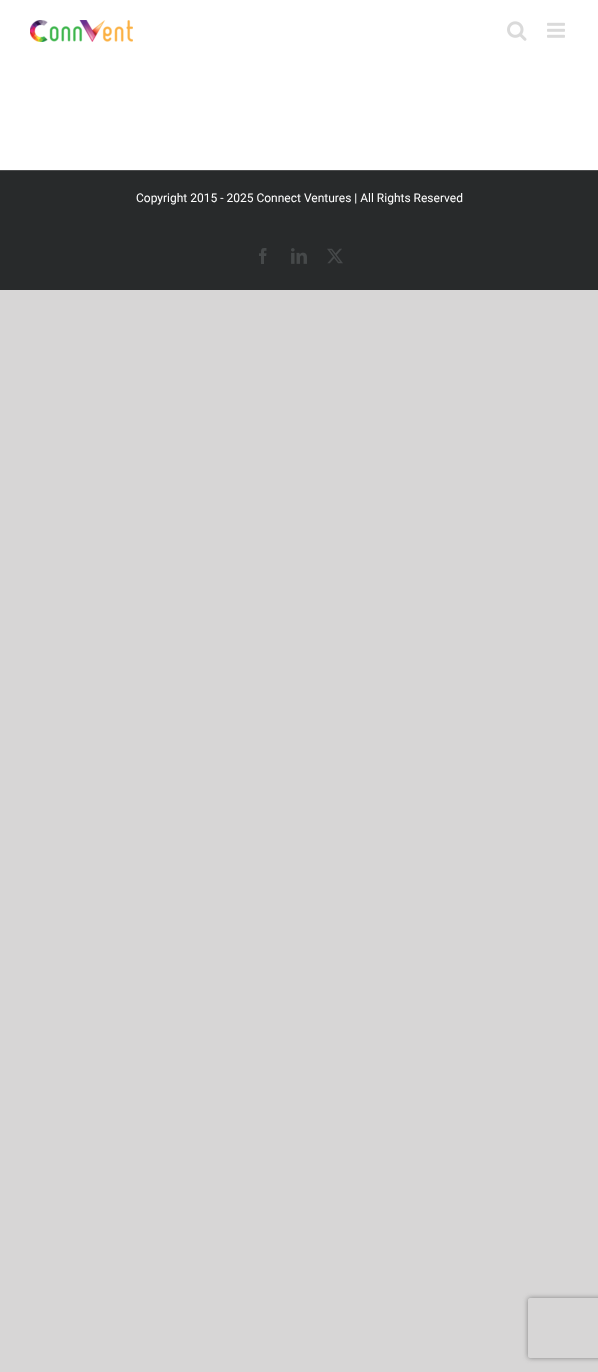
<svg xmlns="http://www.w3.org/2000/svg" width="598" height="1372">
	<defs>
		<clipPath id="clip1"><path d="M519 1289H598V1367H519ZM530 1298H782C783 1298 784 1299 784 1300V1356C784 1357 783 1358 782 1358H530C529 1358 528 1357 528 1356V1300C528 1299 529 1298 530 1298Z" clip-rule="evenodd" /></clipPath>
	</defs>
	<rect width="100%" height="100%" fill="#D7D6D6" />
	<rect x="0" y="0" width="598" height="170" fill="#FFFFFF" />
	<image x="30" y="20" width="103" height="22" href="assets/img1.png" />
	<image x="507" y="21" width="20" height="20" href="assets/img2.png" />
	<image x="547" y="22" width="18" height="16" href="assets/img3.png" />
	<rect x="0" y="171" width="598" height="119" fill="#282A2B" />
	<rect x="0" y="170" width="598" height="1" fill="#4B4C4D" />
	<text x="136" y="202" font-family="Roboto" font-size="12" fill="#FFFFFF">Copyright 2015 - 2025 Connect Ventures | All Rights Reserved</text>
	<image x="259" y="248" width="8" height="16" href="assets/img4.png" />
	<image x="291" y="248" width="16" height="16" href="assets/img5.png" />
	<image x="327" y="248" width="16" height="16" href="assets/img6.png" />
	<g clip-path="url(#clip1)">
		<rect x="528" y="1298" width="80" height="60" rx="2" fill="#808080" filter="blur(2.5px)" />
	</g>
</svg>
